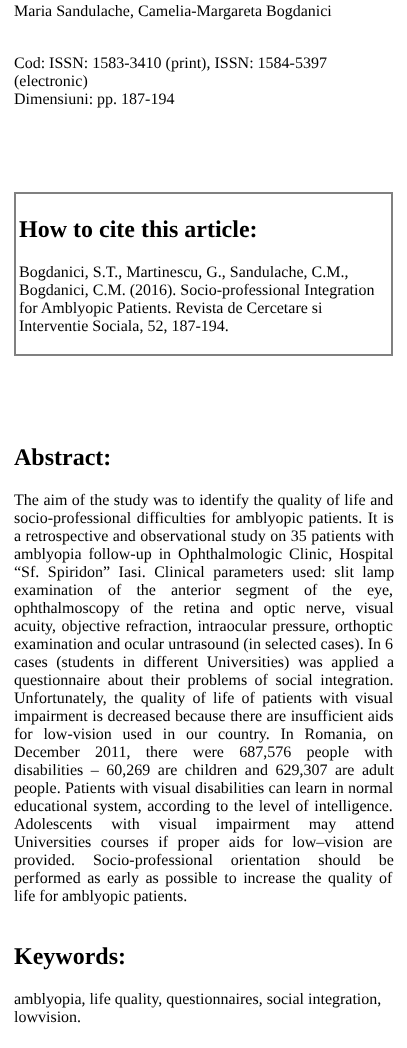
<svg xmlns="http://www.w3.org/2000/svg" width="407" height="1048">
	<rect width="100%" height="100%" fill="#FFFFFF" />
	<g font-family="Liberation Serif" font-size="16" fill="#000000">
		<text x="14" y="16">Maria Sandulache, Camelia-Margareta Bogdanici</text>
		<text x="14" y="68">Cod: ISSN: 1583-3410 (print), ISSN: 1584-5397</text>
		<text x="14" y="86">(electronic)</text>
		<text x="14" y="104">Dimensiuni: pp. 187-194</text>
	</g>
	<rect x="15" y="193" width="377" height="162" fill="none" stroke="#808080" stroke-width="2" />
	<text x="19" y="237" font-family="Liberation Serif" font-size="24" font-weight="700" fill="#000000">How to cite this article:</text>
	<g font-family="Liberation Serif" font-size="16" fill="#000000">
		<text x="19" y="277">Bogdanici, S.T., Martinescu, G., Sandulache, C.M.,</text>
		<text x="19" y="295">Bogdanici, C.M. (2016). Socio-professional Integration</text>
		<text x="19" y="313">for Amblyopic Patients. Revista de Cercetare si</text>
		<text x="19" y="331">Interventie Sociala, 52, 187-194.</text>
	</g>
	<text x="14" y="465" font-family="Liberation Serif" font-size="24" font-weight="700" fill="#000000">Abstract:</text>
	<g font-family="Liberation Serif" font-size="16" fill="#000000">
		<text x="14" y="505" word-spacing="0.5">The aim of the study was to identify the quality of life and</text>
		<text x="14" y="523" word-spacing="1.5">socio-professional difficulties for amblyopic patients. It is</text>
		<text x="14" y="541" word-spacing="0.5">a retrospective and observational study on 35 patients with</text>
		<text x="14" y="559" word-spacing="3">amblyopia follow-up in Ophthalmologic Clinic, Hospital</text>
		<text x="14" y="577" word-spacing="4.5">“Sf. Spiridon” Iasi. Clinical parameters used: slit lamp</text>
		<text x="14" y="595" word-spacing="11">examination of the anterior segment of the eye,</text>
		<text x="14" y="613" word-spacing="6.25">ophthalmoscopy of the retina and optic nerve, visual</text>
		<text x="14" y="631" word-spacing="1.5">acuity, objective refraction, intraocular pressure, orthoptic</text>
		<text x="14" y="649">examination and ocular untrasound (in selected cases). In 6</text>
		<text x="14" y="667" word-spacing="4.5">cases (students in different Universities) was applied a</text>
		<text x="14" y="685" word-spacing="3.5">questionnaire about their problems of social integration.</text>
		<text x="14" y="703" word-spacing="3.25">Unfortunately, the quality of life of patients with visual</text>
		<text x="14" y="721" word-spacing="0.5">impairment is decreased because there are insufficient aids</text>
		<text x="14" y="739" word-spacing="6.75">for low-vision used in our country. In Romania, on</text>
		<text x="14" y="757" word-spacing="11.25">December 2011, there were 687,576 people with</text>
		<text x="14" y="775" word-spacing="3.5">disabilities – 60,269 are children and 629,307 are adult</text>
		<text x="14" y="793" word-spacing="0.25">people. Patients with visual disabilities can learn in normal</text>
		<text x="14" y="811" word-spacing="1.5">educational system, according to the level of intelligence.</text>
		<text x="14" y="829" word-spacing="15">Adolescents with visual impairment may attend</text>
		<text x="14" y="847" word-spacing="5.5">Universities courses if proper aids for low–vision are</text>
		<text x="14" y="865" word-spacing="14">provided. Socio-professional orientation should be</text>
		<text x="14" y="883" word-spacing="2.5">performed as early as possible to increase the quality of</text>
		<text x="14" y="901">life for amblyopic patients.</text>
	</g>
	<text x="14" y="964" font-family="Liberation Serif" font-size="24" font-weight="700" fill="#000000">Keywords:</text>
	<g font-family="Liberation Serif" font-size="16" fill="#000000">
		<text x="14" y="1004">amblyopia, life quality, questionnaires, social integration,</text>
		<text x="14" y="1022">lowvision.</text>
	</g>
</svg>
